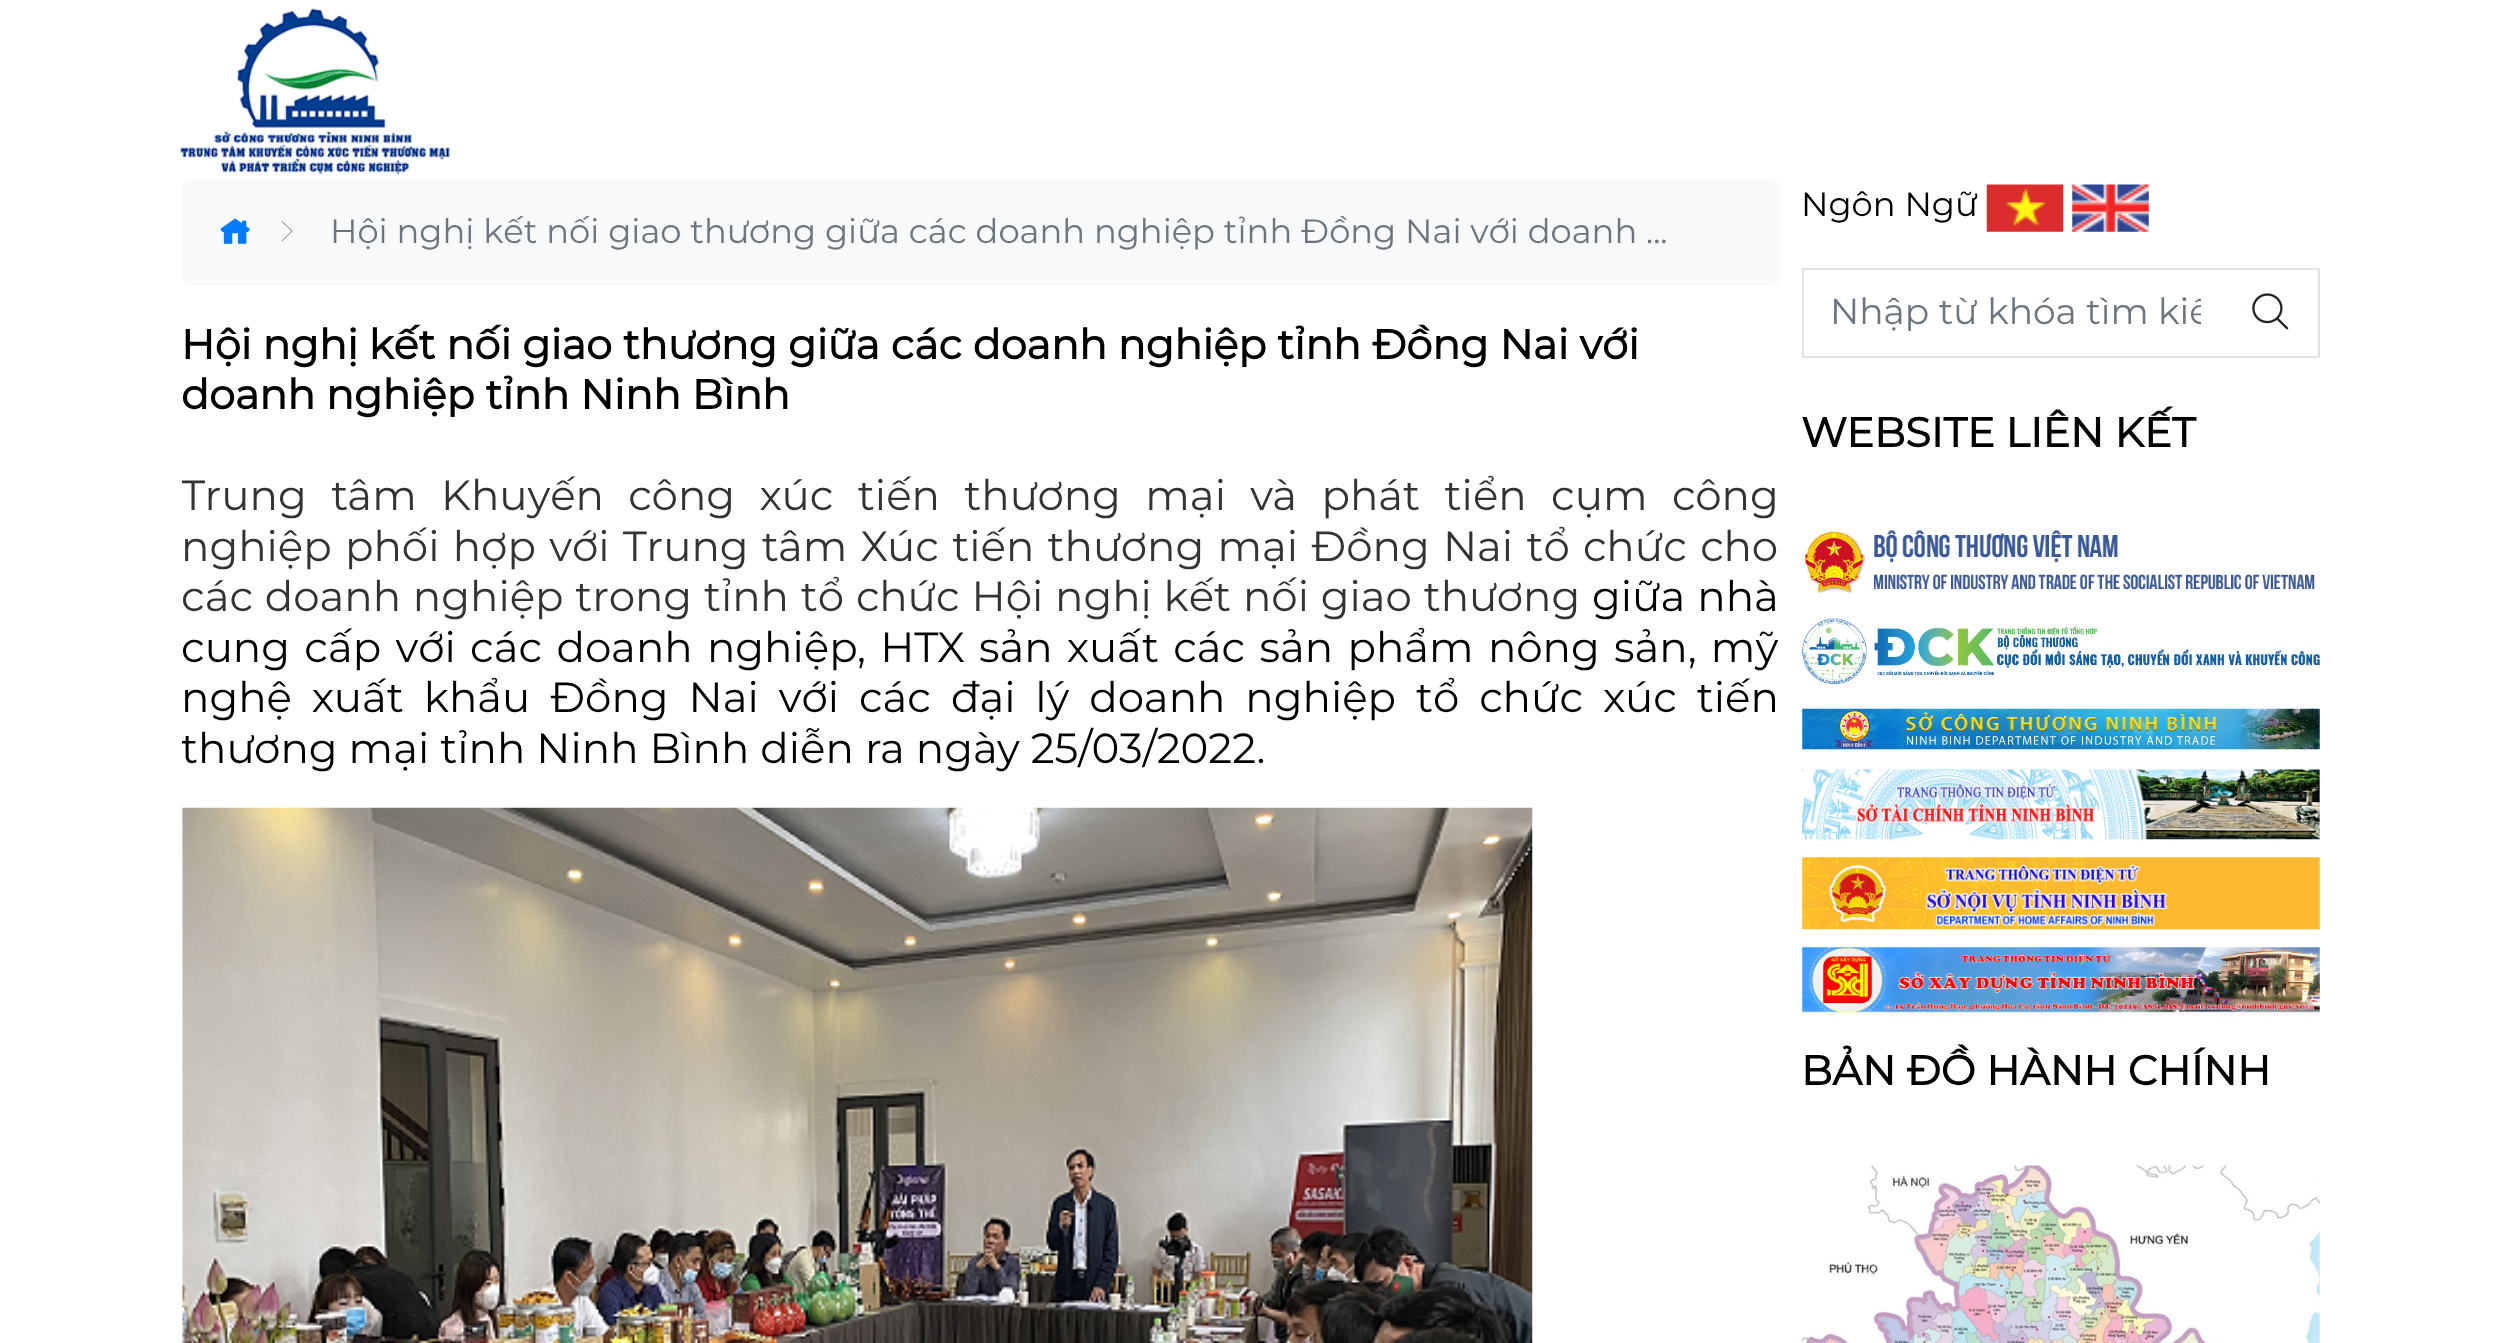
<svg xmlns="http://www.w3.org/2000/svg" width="2498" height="1343">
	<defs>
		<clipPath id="clip1"><rect x="182" y="475" width="1598" height="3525" /></clipPath>
		<clipPath id="clip2"><rect x="1832" y="290" width="369" height="43" /></clipPath>
	</defs>
	<rect width="100%" height="100%" fill="#FFFFFF" />
	<image x="180" y="6" width="270" height="169" href="assets/img1.png" />
	<rect x="182" y="180" width="1598" height="106" rx="9" fill="#F8F9FA" />
	<image x="220" y="218" width="30" height="26" href="assets/img2.png" />
	<path d="M281.5 241L291.5 231L281.5 221.5L282 221L292.5 231L282 241.5Z" fill="#6C757D" />
	<text x="330" y="243" font-family="Montserrat" font-size="33.75" font-weight="100" fill="#6C757D">Hội nghị kết nối giao thương giữa các doanh nghiệp tỉnh Đồng Nai với doanh ...</text>
	<g font-family="Montserrat" font-size="41.4" font-weight="700" fill="#000000">
		<text x="181" y="359">Hội nghị kết nối giao thương giữa các doanh nghiệp tỉnh Đồng Nai với</text>
		<text x="181" y="409">doanh nghiệp tỉnh Ninh Bình</text>
	</g>
	<g clip-path="url(#clip1)">
		<text x="181" y="510" word-spacing="13.4" font-family="Montserrat" font-size="42" font-weight="100" fill="#333333">Trung tâm Khuyến công xúc tiến thương mại và phát tiển cụm công</text>
	</g>
	<g font-family="Montserrat" font-size="42" font-weight="100" fill="#333333">
		<text x="181" y="561" word-spacing="2.25">nghiệp phối hợp với Trung tâm Xúc tiến thương mại Đồng Nai tổ chức cho</text>
		<text x="181" y="611" word-spacing="0.75">các doanh nghiệp trong tỉnh tổ chức Hội nghị kết nối giao thương</text>
	</g>
	<g font-family="Montserrat" font-size="42" font-weight="100" fill="#000000">
		<text x="1592" y="611" word-spacing="1">giữa nhà</text>
		<text x="181" y="662" word-spacing="3.25">cung cấp với các doanh nghiệp, HTX sản xuất các sản phẩm nông sản, mỹ</text>
		<text x="181" y="712" word-spacing="8.9">nghệ xuất khẩu Đồng Nai với các đại lý doanh nghiệp tổ chức xúc tiến</text>
	</g>
	<g clip-path="url(#clip1)">
		<text x="181" y="763" font-family="Montserrat" font-size="42" font-weight="100" fill="#000000">thương mại tỉnh Ninh Bình diễn ra ngày 25/03/2022.</text>
	</g>
	<image x="182" y="807" width="1351" height="536" href="assets/img3.png" />
	<text x="1801" y="216" font-family="Montserrat" font-size="33.75" font-weight="100" fill="#000000">Ngôn Ngữ</text>
	<image x="1986" y="184" width="78" height="48" href="assets/img4.png" />
	<image x="2072" y="184" width="77" height="48" href="assets/img5.png" />
	<rect x="1803" y="269" width="516" height="88" fill="none" stroke="#DEE2E6" stroke-width="2" />
	<g clip-path="url(#clip2)">
		<text x="1830" y="324" font-family="Montserrat" font-size="36" font-weight="100" fill="#6C757D">Nhập từ khóa tìm kiế</text>
	</g>
	<image x="2252" y="293" width="37" height="37" href="assets/img6.png" />
	<text x="1801" y="447" font-family="Montserrat" font-size="41.4" font-weight="700" fill="#000000">WEBSITE LIÊN KẾT</text>
	<image x="1804" y="530" width="511" height="63" href="assets/img7.png" />
	<image x="1802" y="618" width="518" height="66" href="assets/img8.png" />
	<image x="1802" y="708" width="518" height="42" href="assets/img9.png" />
	<image x="1802" y="769" width="518" height="71" href="assets/img10.png" />
	<image x="1802" y="857" width="518" height="73" href="assets/img11.png" />
	<image x="1802" y="947" width="518" height="66" href="assets/img12.png" />
	<text x="1801" y="1085" font-family="Montserrat" font-size="41.4" font-weight="700" fill="#000000">BẢN ĐỒ HÀNH CHÍNH</text>
	<image x="1802" y="1165" width="518" height="178" href="assets/img13.png" />
</svg>
